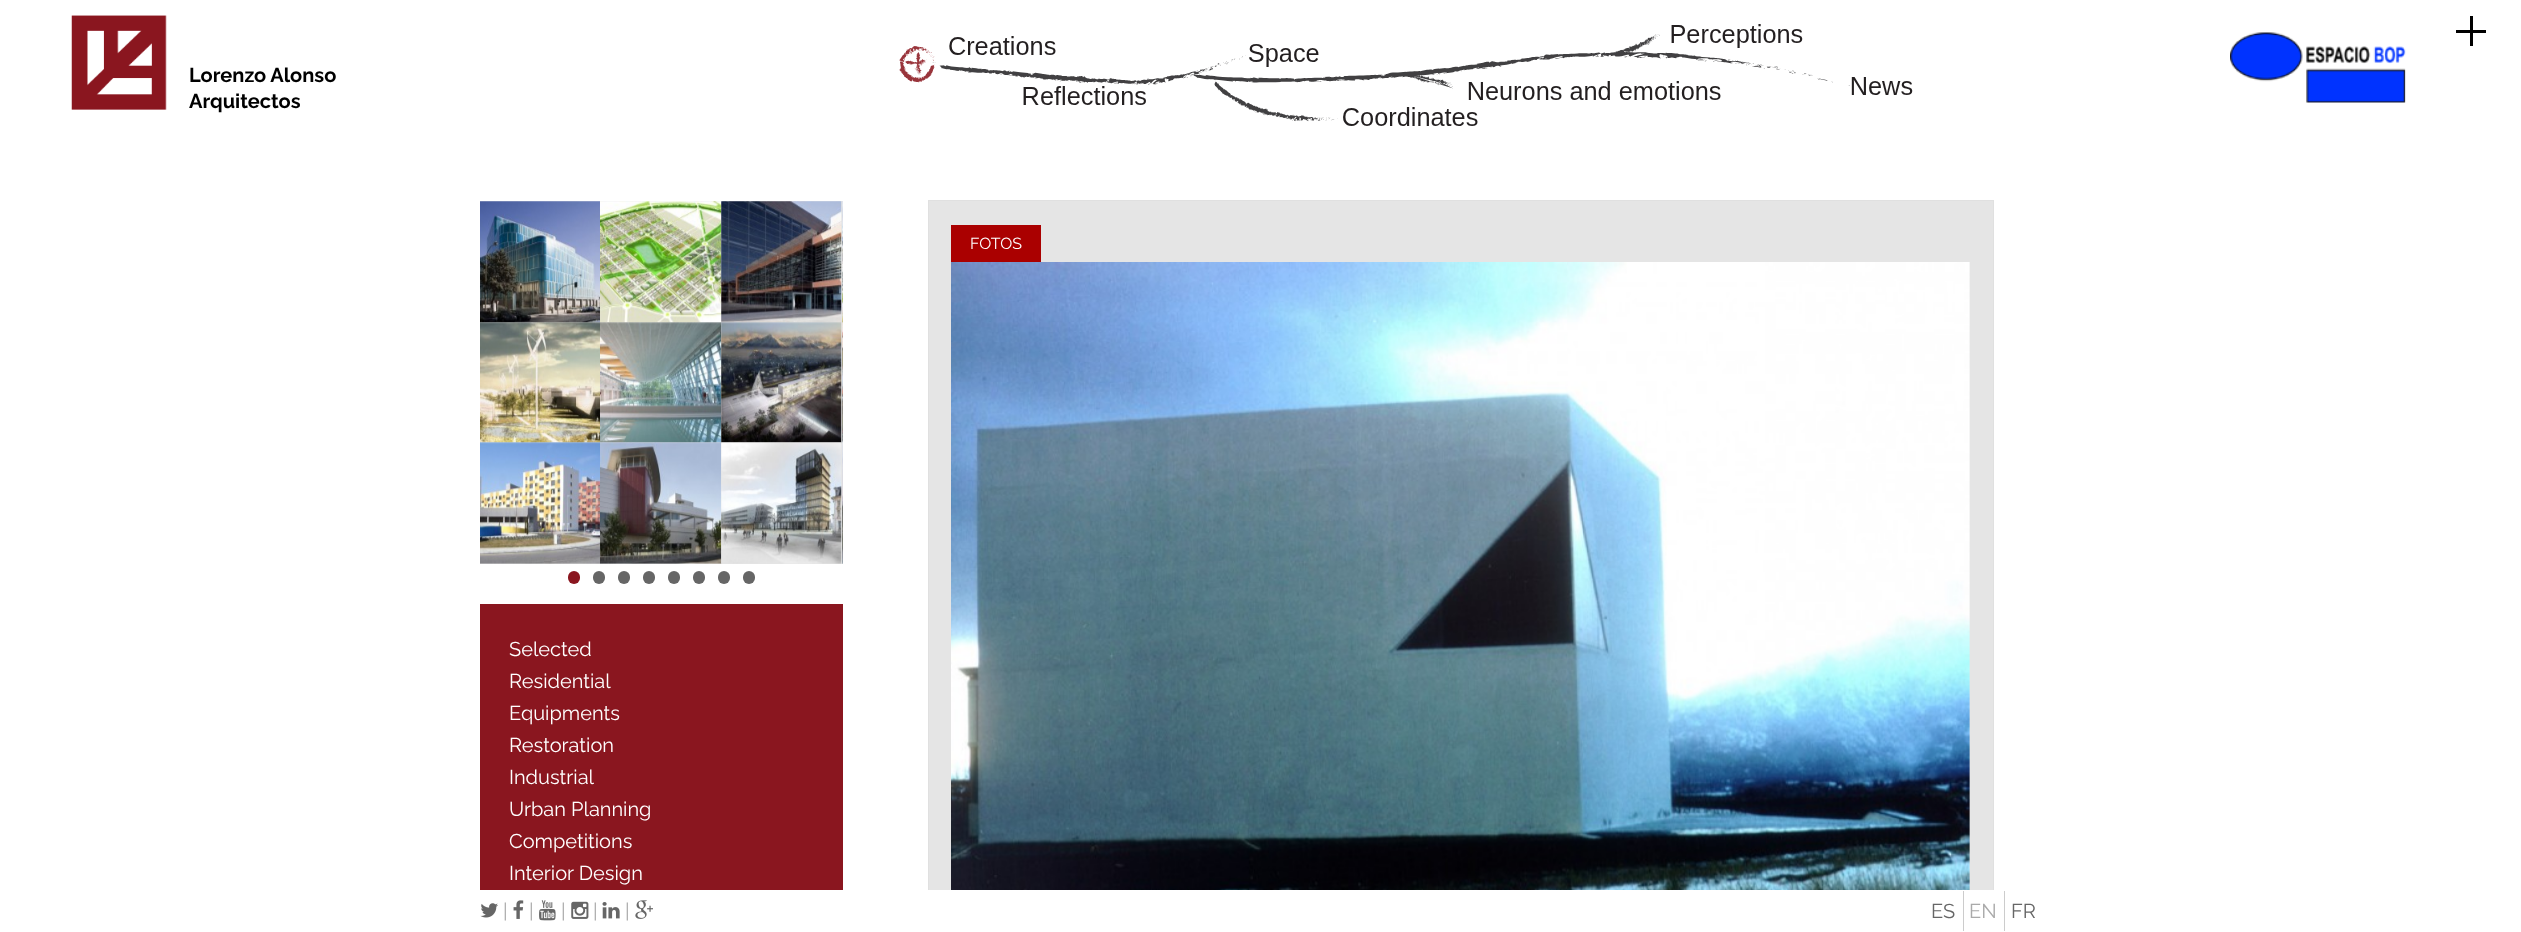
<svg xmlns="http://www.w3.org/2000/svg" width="2521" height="932">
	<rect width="100%" height="100%" fill="#FFFFFF" />
	<rect x="2456" y="30" width="30" height="3" fill="#000000" />
	<rect x="2470" y="16" width="3" height="30" fill="#000000" />
	<image x="71" y="15" width="96" height="95" href="assets/img1.png" />
	<g font-family="Raleway" font-size="20" font-weight="700" fill="#000000">
		<text x="189" y="82">Lorenzo Alonso</text>
		<text x="189" y="108">Arquitectos</text>
	</g>
	<image x="899" y="24" width="1014" height="102" href="assets/img2.png" />
	<image x="2230" y="32" width="176" height="71" href="assets/img3.png" />
	<rect x="929" y="201" width="1064" height="689" fill="#E5E5E5" />
	<rect x="928.5" y="200.5" width="1065" height="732" fill="none" stroke="#E0E0E0" />
	<rect x="951" y="225" width="90" height="37" fill="#AA0000" />
	<text x="970" y="249" font-family="Raleway" font-size="16" fill="#FFFFFF">FOTOS</text>
	<image x="951" y="262" width="1019" height="628" href="assets/img4.png" />
	<rect x="480" y="201" width="363" height="363" fill="#E5E5E5" />
	<image x="480" y="201" width="120" height="123" href="assets/img5.png" />
	<image x="600" y="201" width="122" height="122" href="assets/img6.png" />
	<image x="721" y="201" width="121" height="122" href="assets/img7.png" />
	<image x="480" y="322" width="120" height="122" href="assets/img8.png" />
	<image x="600" y="322" width="122" height="122" href="assets/img9.png" />
	<image x="721" y="322" width="121" height="122" href="assets/img10.png" />
	<image x="480" y="442" width="120" height="122" href="assets/img11.png" />
	<image x="600" y="442" width="122" height="122" href="assets/img12.png" />
	<image x="721" y="442" width="121" height="122" href="assets/img13.png" />
	<image x="842" y="201" width="1" height="123" href="assets/img14.png" />
	<image x="842" y="322" width="1" height="121" href="assets/img15.png" />
	<image x="842" y="442" width="1" height="122" href="assets/img16.png" />
	<rect x="568" y="571" width="12" height="13" rx="6" fill="#8A161F" />
	<rect x="593" y="571" width="12" height="13" rx="6" fill="#666666" />
	<rect x="618" y="571" width="12" height="13" rx="6" fill="#666666" />
	<rect x="643" y="571" width="12" height="13" rx="6" fill="#666666" />
	<rect x="668" y="571" width="12" height="13" rx="6" fill="#666666" />
	<rect x="693" y="571" width="12" height="13" rx="6" fill="#666666" />
	<rect x="718" y="571" width="12" height="13" rx="6" fill="#666666" />
	<rect x="743" y="571" width="12" height="13" rx="6" fill="#666666" />
	<rect x="480" y="604" width="363" height="286" fill="#8A161F" />
	<g font-family="Raleway" font-size="20" fill="#FFFFFF">
		<text x="509" y="656">Selected</text>
		<text x="509" y="688">Residential</text>
		<text x="509" y="720">Equipments</text>
		<text x="509" y="752">Restoration</text>
		<text x="509" y="784">Industrial</text>
		<text x="509" y="816">Urban Planning</text>
		<text x="509" y="848">Competitions</text>
		<text x="509" y="880">Interior Design</text>
	</g>
	<rect x="928" y="890" width="1066" height="42" fill="#FFFFFF" />
	<image x="480" y="903" width="18" height="15" href="assets/img17.png" />
	<text x="503" y="918" font-family="Raleway" font-size="20" fill="#AAAAAA">|</text>
	<image x="513" y="900" width="11" height="19" href="assets/img18.png" />
	<text x="529" y="918" font-family="Raleway" font-size="20" fill="#AAAAAA">|</text>
	<image x="539" y="900" width="17" height="21" href="assets/img19.png" />
	<text x="561" y="918" font-family="Raleway" font-size="20" fill="#AAAAAA">|</text>
	<image x="571" y="901" width="18" height="18" href="assets/img20.png" />
	<text x="593" y="918" font-family="Raleway" font-size="20" fill="#AAAAAA">|</text>
	<image x="602" y="902" width="18" height="17" href="assets/img21.png" />
	<text x="625" y="918" font-family="Raleway" font-size="20" fill="#AAAAAA">|</text>
	<image x="635" y="900" width="18" height="19" href="assets/img22.png" />
	<rect x="1963" y="891" width="1" height="40" fill="#CCCCCC" />
	<text x="1931" y="918" font-family="Raleway" font-size="20" fill="#666666">ES</text>
	<rect x="2004" y="891" width="1" height="40" fill="#CCCCCC" />
	<text x="1969" y="918" font-family="Raleway" font-size="20" fill="#AAAAAA">EN</text>
	<text x="2011" y="918" font-family="Raleway" font-size="20" fill="#666666">FR</text>
</svg>
